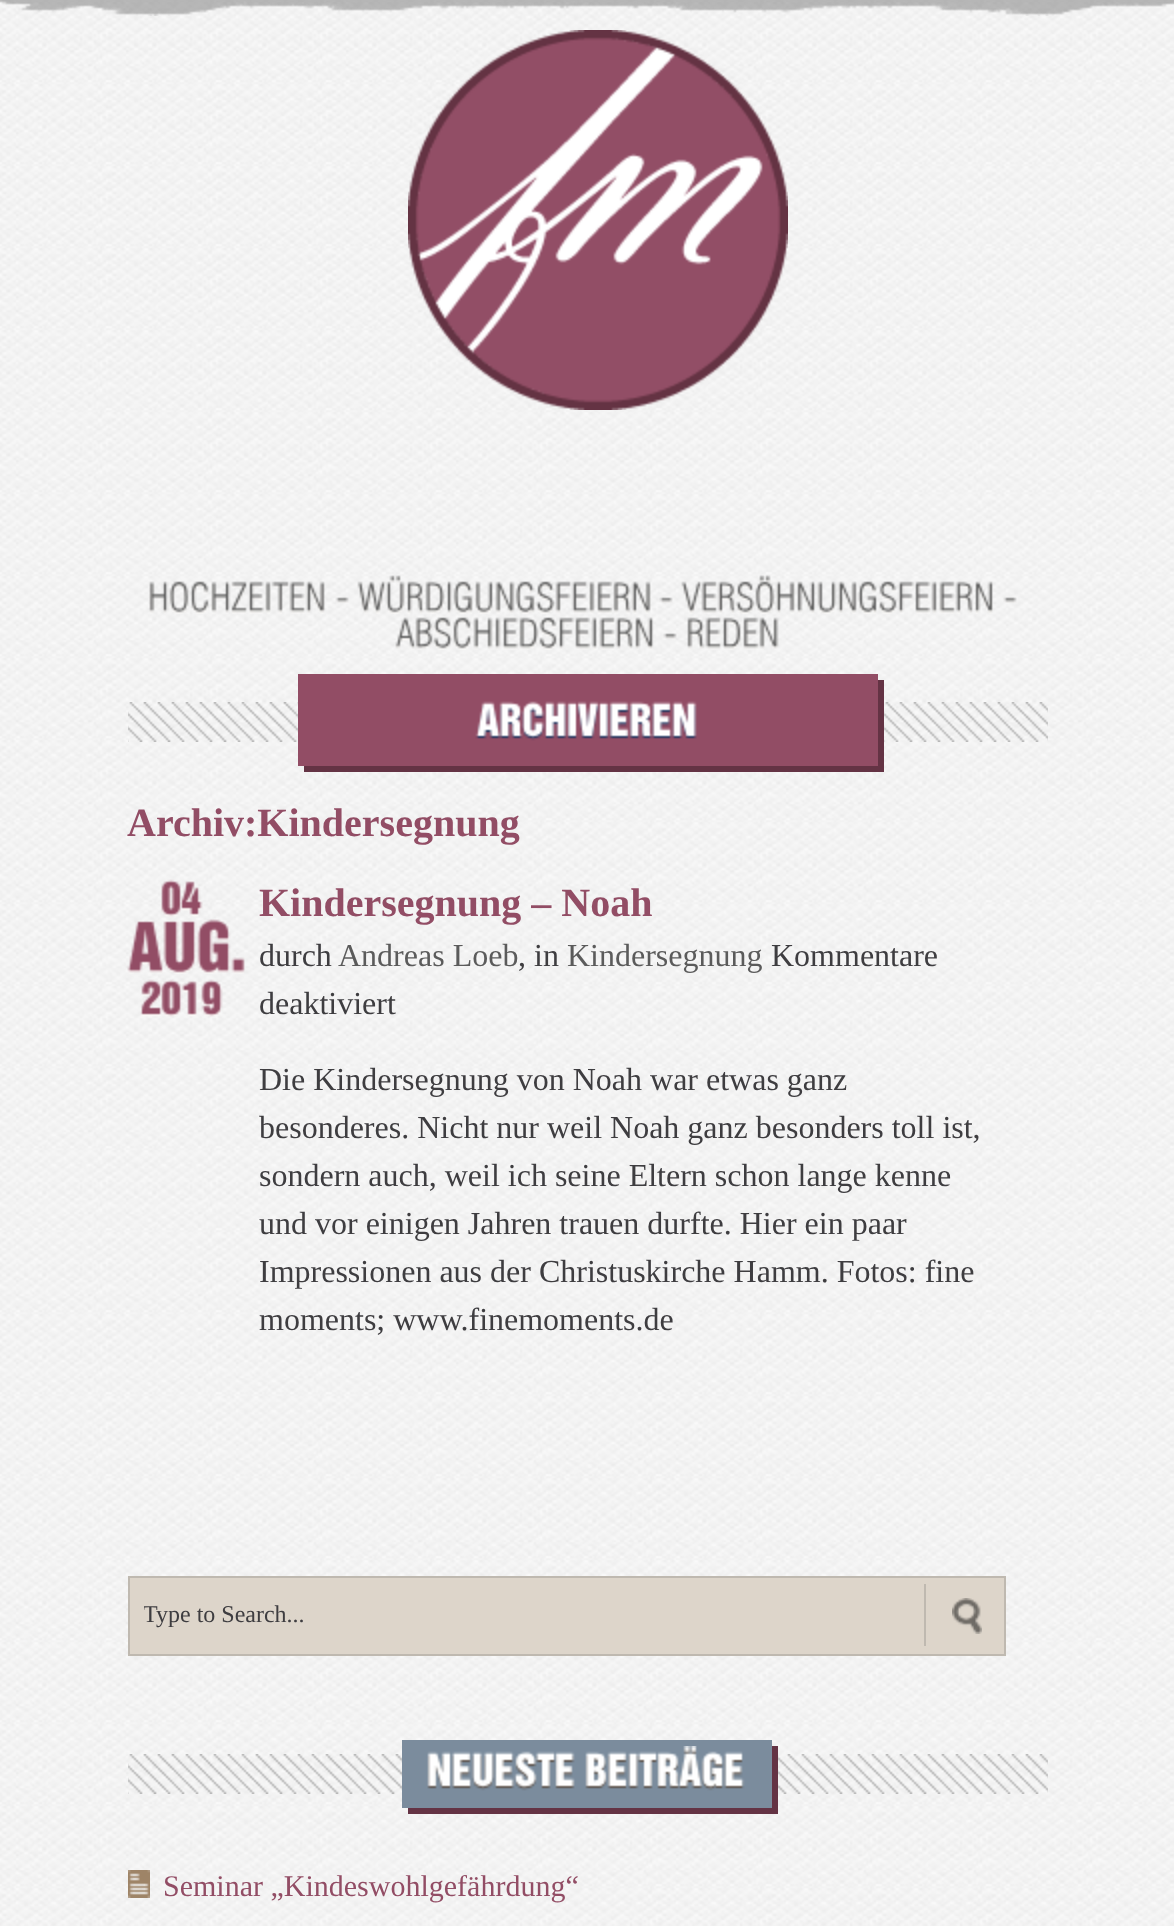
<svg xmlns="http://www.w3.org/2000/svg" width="1174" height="1926">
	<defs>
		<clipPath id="clip1"><rect x="144" y="1600" width="768" height="30" /></clipPath>
	</defs>
	<rect width="100%" height="100%" fill="#FFFFFF" />
	<image x="0" y="0" width="1174" height="1926" href="assets/img1.png" />
	<image x="0" y="0" width="1174" height="16" href="assets/img2.png" />
	<image x="408" y="30" width="380" height="380" href="assets/img3.png" />
	<image x="149" y="581" width="176" height="33" href="assets/img4.png" />
	<image x="335" y="597" width="14" height="6" href="assets/img5.png" />
	<image x="357" y="575" width="294" height="39" href="assets/img6.png" />
	<image x="659" y="597" width="14" height="6" href="assets/img7.png" />
	<image x="681" y="575" width="312" height="39" href="assets/img8.png" />
	<image x="1003" y="597" width="14" height="6" href="assets/img9.png" />
	<image x="395" y="617" width="259" height="33" href="assets/img10.png" />
	<image x="663" y="633" width="14" height="6" href="assets/img11.png" />
	<image x="687" y="617" width="92" height="33" href="assets/img12.png" />
	<image x="128" y="702" width="920" height="40" href="assets/img13.png" />
	<path d="M304 766V772H884V680H878V766Z" fill="#643344" />
	<rect x="298" y="674" width="580" height="92" fill="#924D65" />
	<image x="475" y="701" width="222" height="40" href="assets/img14.png" />
	<text x="127" y="836" font-family="Liberation Serif" font-size="40" font-weight="700" fill="#924D65">Archiv:Kindersegnung</text>
	<image x="161" y="879" width="42" height="38" href="assets/img15.png" />
	<image x="127" y="919" width="118" height="55" href="assets/img16.png" />
	<image x="140" y="979" width="83" height="38" href="assets/img17.png" />
	<text x="259" y="916" font-family="Liberation Serif" font-size="40" font-weight="700" fill="#924D65">Kindersegnung – Noah</text>
	<text x="259" y="966" font-family="Liberation Serif" font-size="32" fill="#3E3D40">durch</text>
	<text x="338" y="966" font-family="Liberation Serif" font-size="32" fill="#5B5B5B">Andreas Loeb</text>
	<text x="518" y="966" font-family="Liberation Serif" font-size="32" fill="#3E3D40">, in</text>
	<text x="567" y="966" font-family="Liberation Serif" font-size="32" fill="#5B5B5B">Kindersegnung</text>
	<g font-family="Liberation Serif" font-size="32" fill="#3E3D40">
		<text x="771" y="966">Kommentare</text>
		<text x="259" y="1014">deaktiviert</text>
		<text x="259" y="1090">Die Kindersegnung von Noah war etwas ganz</text>
		<text x="259" y="1138">besonderes. Nicht nur weil Noah ganz besonders toll ist,</text>
		<text x="259" y="1186">sondern auch, weil ich seine Eltern schon lange kenne</text>
		<text x="259" y="1234">und vor einigen Jahren trauen durfte. Hier ein paar</text>
		<text x="259" y="1282">Impressionen aus der Christuskirche Hamm. Fotos: fine</text>
		<text x="259" y="1330">moments; www.finemoments.de</text>
	</g>
	<rect x="129" y="1577" width="876" height="78" fill="#DDD5CA" stroke="#BFB9B0" stroke-width="2" />
	<rect x="924" y="1584" width="2" height="62" fill="#BFB9B0" />
	<g clip-path="url(#clip1)">
		<text x="143" y="1622" font-family="Liberation Serif" font-size="24" fill="#3E3D40">Type to Search...</text>
	</g>
	<image x="952" y="1598" width="30" height="36" href="assets/img18.png" />
	<image x="128" y="1754" width="920" height="40" href="assets/img19.png" />
	<path d="M408 1808V1814H592V1746H586V1808Z" fill="#643344" />
	<rect x="402" y="1740" width="184" height="68" fill="#7B8C9D" />
	<path d="M592 1808V1814H778V1746H772V1808Z" fill="#643344" />
	<rect x="586" y="1740" width="186" height="68" fill="#7B8C9D" />
	<image x="427" y="1751" width="148" height="40" href="assets/img20.png" />
	<image x="585" y="1746" width="160" height="45" href="assets/img21.png" />
	<image x="128" y="1870" width="22" height="28" href="assets/img22.png" />
	<text x="163" y="1896" font-family="Liberation Serif" font-size="30" fill="#924D65">Seminar „Kindeswohlgefährdung“</text>
</svg>
